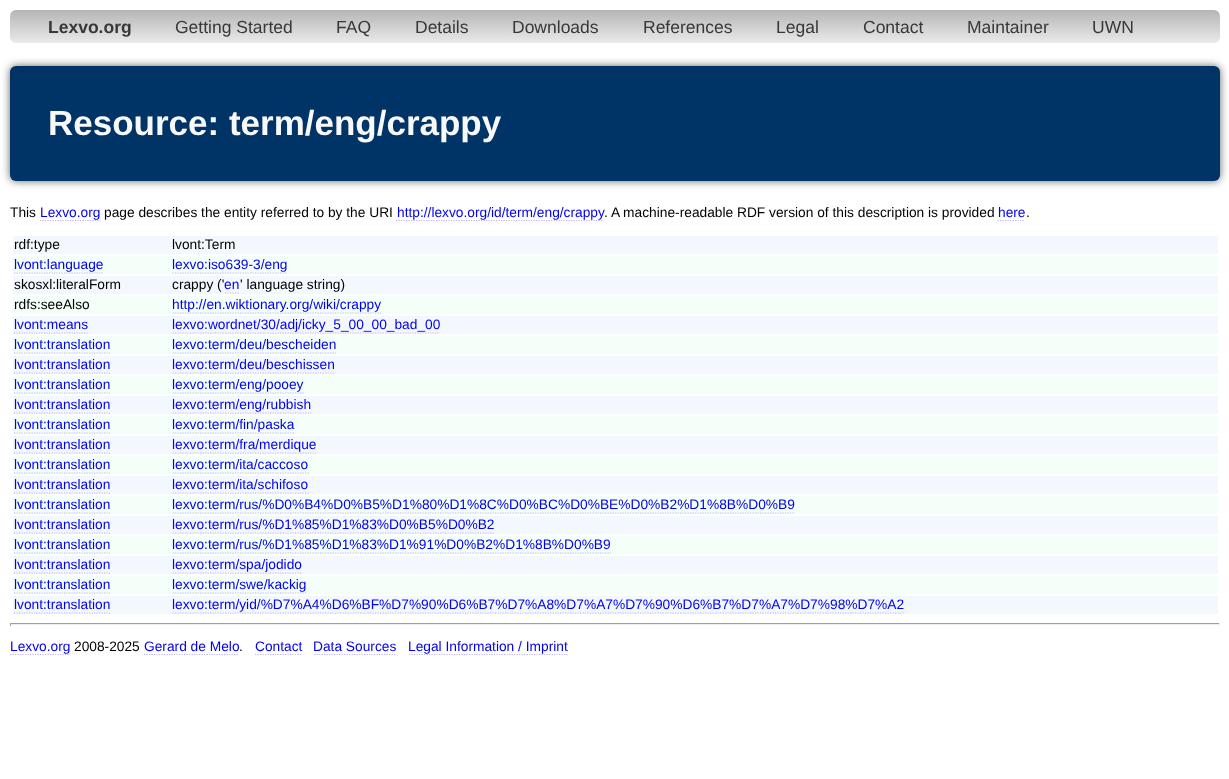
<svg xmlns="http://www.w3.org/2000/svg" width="1229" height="779">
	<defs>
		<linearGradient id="g1" gradientUnits="userSpaceOnUse" x1="615" y1="10" x2="615" y2="43"><stop offset="0" stop-color="#B5B5B5" /><stop offset="1" stop-color="#EAEAEA" /></linearGradient>
	</defs>
	<rect width="100%" height="100%" fill="#FFFFFF" />
	<rect x="10" y="10" width="1210" height="33" rx="6" fill="url(#g1)" />
	<text x="48" y="33" font-family="Liberation Sans" font-size="17.5" font-weight="700" fill="#383838">Lexvo.org</text>
	<g font-family="Liberation Sans" font-size="17.5" fill="#383838">
		<text x="175" y="33">Getting Started</text>
		<text x="336" y="33">FAQ</text>
		<text x="415" y="33">Details</text>
		<text x="512" y="33">Downloads</text>
		<text x="643" y="33">References</text>
		<text x="776" y="33">Legal</text>
		<text x="863" y="33">Contact</text>
		<text x="967" y="33">Maintainer</text>
		<text x="1092" y="33">UWN</text>
	</g>
	<rect x="10" y="66" width="1210" height="115" rx="6" fill="#000000" fill-opacity="0.6" filter="blur(4px)" />
	<rect x="10" y="66" width="1210" height="115" rx="6" fill="#003366" />
	<text x="48" y="135" font-family="Liberation Sans" font-size="35" font-weight="700" fill="#F8F8F8">Resource: term/eng/crappy</text>
	<text x="10" y="217" font-family="Liberation Sans" font-size="13.75" fill="#000000">This</text>
	<path d="M40 220.5H100" fill="none" stroke="#BFB6FF" stroke-width="1.2" stroke-dasharray="1.25 1.25" />
	<text x="40" y="217" font-family="Liberation Sans" font-size="13.75" fill="#0000EE">Lexvo.org</text>
	<text x="104" y="217" font-family="Liberation Sans" font-size="13.75" fill="#000000">page describes the entity referred to by the URI</text>
	<path d="M396 220.5H604" fill="none" stroke="#BFB6FF" stroke-width="1.2" stroke-dasharray="1.25 1.25" />
	<text x="397" y="217" font-family="Liberation Sans" font-size="13.75" fill="#0000EE">http://lexvo.org/id/term/eng/crappy</text>
	<text x="604" y="217" font-family="Liberation Sans" font-size="13.75" fill="#000000">. A machine-readable RDF version of this description is provided</text>
	<text x="998" y="217" font-family="Liberation Sans" font-size="13.75" fill="#0000EE">here</text>
	<path d="M997.5 220.5H1025" fill="none" stroke="#BFB6FF" stroke-width="1.2" stroke-dasharray="1.25 1.25" />
	<text x="1026" y="217" font-family="Liberation Sans" font-size="13.75" fill="#000000">.</text>
	<rect x="13" y="236" width="1205" height="18" fill="#F3F8FF" />
	<g font-family="Liberation Sans" font-size="13.75" fill="#000000">
		<text x="14" y="249">rdf:type</text>
		<text x="172" y="249">lvont:Term</text>
	</g>
	<rect x="13" y="256" width="1205" height="18" fill="#F3FFF8" />
	<text x="14" y="269" font-family="Liberation Sans" font-size="13.75" fill="#0000EE">lvont:language</text>
	<path d="M14 273H104" fill="none" stroke="#BFB6FF" stroke-width="1.2" stroke-dasharray="1.25 1.25" />
	<text x="172" y="269" font-family="Liberation Sans" font-size="13.75" fill="#0000EE">lexvo:iso639-3/eng</text>
	<path d="M172.5 273H287.5" fill="none" stroke="#BFB6FF" stroke-width="1.2" stroke-dasharray="1.25 1.25" />
	<rect x="13" y="276" width="1205" height="18" fill="#F3F8FF" />
	<g font-family="Liberation Sans" font-size="13.75" fill="#000000">
		<text x="14" y="289">skosxl:literalForm</text>
		<text x="172" y="289">crappy ('</text>
	</g>
	<text x="224" y="289" font-family="Liberation Sans" font-size="13.75" fill="#0000EE">en</text>
	<path d="M225 293H240" fill="none" stroke="#BFB6FF" stroke-width="1.2" stroke-dasharray="1.25 1.25" />
	<text x="240" y="289" font-family="Liberation Sans" font-size="13.75" fill="#000000">' language string)</text>
	<rect x="13" y="296" width="1205" height="18" fill="#F3FFF8" />
	<text x="14" y="309" font-family="Liberation Sans" font-size="13.75" fill="#000000">rdfs:seeAlso</text>
	<text x="172" y="309" font-family="Liberation Sans" font-size="13.75" fill="#0000EE">http://en.wiktionary.org/wiki/crappy</text>
	<path d="M172.5 313H381" fill="none" stroke="#BFB6FF" stroke-width="1.2" stroke-dasharray="1.25 1.25" />
	<rect x="13" y="316" width="1205" height="18" fill="#F3F8FF" />
	<text x="14" y="329" font-family="Liberation Sans" font-size="13.75" fill="#0000EE">lvont:means</text>
	<path d="M14 333H87.5" fill="none" stroke="#BFB6FF" stroke-width="1.2" stroke-dasharray="1.25 1.25" />
	<text x="172" y="329" font-family="Liberation Sans" font-size="13.75" fill="#0000EE">lexvo:wordnet/30/adj/icky_5_00_00_bad_00</text>
	<path d="M172.5 333H440" fill="none" stroke="#BFB6FF" stroke-width="1.2" stroke-dasharray="1.25 1.25" />
	<rect x="13" y="336" width="1205" height="18" fill="#F3FFF8" />
	<text x="14" y="349" font-family="Liberation Sans" font-size="13.75" fill="#0000EE">lvont:translation</text>
	<path d="M14 353H110" fill="none" stroke="#BFB6FF" stroke-width="1.2" stroke-dasharray="1.25 1.25" />
	<text x="172" y="349" font-family="Liberation Sans" font-size="13.75" fill="#0000EE">lexvo:term/deu/bescheiden</text>
	<path d="M172.5 353H336" fill="none" stroke="#BFB6FF" stroke-width="1.2" stroke-dasharray="1.25 1.25" />
	<rect x="13" y="356" width="1205" height="18" fill="#F3F8FF" />
	<text x="14" y="369" font-family="Liberation Sans" font-size="13.75" fill="#0000EE">lvont:translation</text>
	<path d="M14 373H110" fill="none" stroke="#BFB6FF" stroke-width="1.2" stroke-dasharray="1.25 1.25" />
	<text x="172" y="369" font-family="Liberation Sans" font-size="13.75" fill="#0000EE">lexvo:term/deu/beschissen</text>
	<path d="M172.5 373H335" fill="none" stroke="#BFB6FF" stroke-width="1.2" stroke-dasharray="1.25 1.25" />
	<rect x="13" y="376" width="1205" height="18" fill="#F3FFF8" />
	<text x="14" y="389" font-family="Liberation Sans" font-size="13.75" fill="#0000EE">lvont:translation</text>
	<path d="M14 393H110" fill="none" stroke="#BFB6FF" stroke-width="1.2" stroke-dasharray="1.25 1.25" />
	<text x="172" y="389" font-family="Liberation Sans" font-size="13.75" fill="#0000EE">lexvo:term/eng/pooey</text>
	<path d="M172.5 393H304" fill="none" stroke="#BFB6FF" stroke-width="1.2" stroke-dasharray="1.25 1.25" />
	<rect x="13" y="396" width="1205" height="18" fill="#F3F8FF" />
	<text x="14" y="409" font-family="Liberation Sans" font-size="13.75" fill="#0000EE">lvont:translation</text>
	<path d="M14 413H110" fill="none" stroke="#BFB6FF" stroke-width="1.2" stroke-dasharray="1.25 1.25" />
	<text x="172" y="409" font-family="Liberation Sans" font-size="13.75" fill="#0000EE">lexvo:term/eng/rubbish</text>
	<path d="M172.5 413H311" fill="none" stroke="#BFB6FF" stroke-width="1.2" stroke-dasharray="1.25 1.25" />
	<rect x="13" y="416" width="1205" height="18" fill="#F3FFF8" />
	<text x="14" y="429" font-family="Liberation Sans" font-size="13.75" fill="#0000EE">lvont:translation</text>
	<path d="M14 433H110" fill="none" stroke="#BFB6FF" stroke-width="1.2" stroke-dasharray="1.25 1.25" />
	<text x="172" y="429" font-family="Liberation Sans" font-size="13.75" fill="#0000EE">lexvo:term/fin/paska</text>
	<path d="M172.5 433H295" fill="none" stroke="#BFB6FF" stroke-width="1.2" stroke-dasharray="1.25 1.25" />
	<rect x="13" y="436" width="1205" height="18" fill="#F3F8FF" />
	<text x="14" y="449" font-family="Liberation Sans" font-size="13.75" fill="#0000EE">lvont:translation</text>
	<path d="M14 453H110" fill="none" stroke="#BFB6FF" stroke-width="1.2" stroke-dasharray="1.25 1.25" />
	<text x="172" y="449" font-family="Liberation Sans" font-size="13.75" fill="#0000EE">lexvo:term/fra/merdique</text>
	<path d="M172.5 453H316" fill="none" stroke="#BFB6FF" stroke-width="1.2" stroke-dasharray="1.25 1.25" />
	<rect x="13" y="456" width="1205" height="18" fill="#F3FFF8" />
	<text x="14" y="469" font-family="Liberation Sans" font-size="13.75" fill="#0000EE">lvont:translation</text>
	<path d="M14 473H110" fill="none" stroke="#BFB6FF" stroke-width="1.2" stroke-dasharray="1.25 1.25" />
	<text x="172" y="469" font-family="Liberation Sans" font-size="13.75" fill="#0000EE">lexvo:term/ita/caccoso</text>
	<path d="M172.5 473H309" fill="none" stroke="#BFB6FF" stroke-width="1.2" stroke-dasharray="1.25 1.25" />
	<rect x="13" y="476" width="1205" height="18" fill="#F3F8FF" />
	<text x="14" y="489" font-family="Liberation Sans" font-size="13.75" fill="#0000EE">lvont:translation</text>
	<path d="M14 493H110" fill="none" stroke="#BFB6FF" stroke-width="1.2" stroke-dasharray="1.25 1.25" />
	<text x="172" y="489" font-family="Liberation Sans" font-size="13.75" fill="#0000EE">lexvo:term/ita/schifoso</text>
	<path d="M172.5 493H309" fill="none" stroke="#BFB6FF" stroke-width="1.2" stroke-dasharray="1.25 1.25" />
	<rect x="13" y="496" width="1205" height="18" fill="#F3FFF8" />
	<text x="14" y="509" font-family="Liberation Sans" font-size="13.75" fill="#0000EE">lvont:translation</text>
	<path d="M14 513H110" fill="none" stroke="#BFB6FF" stroke-width="1.2" stroke-dasharray="1.25 1.25" />
	<text x="172" y="509" font-family="Liberation Sans" font-size="13.75" fill="#0000EE">lexvo:term/rus/%D0%B4%D0%B5%D1%80%D1%8C%D0%BC%D0%BE%D0%B2%D1%8B%D0%B9</text>
	<path d="M172.5 513H795" fill="none" stroke="#BFB6FF" stroke-width="1.2" stroke-dasharray="1.25 1.25" />
	<rect x="13" y="516" width="1205" height="18" fill="#F3F8FF" />
	<text x="14" y="529" font-family="Liberation Sans" font-size="13.75" fill="#0000EE">lvont:translation</text>
	<path d="M14 533H110" fill="none" stroke="#BFB6FF" stroke-width="1.2" stroke-dasharray="1.25 1.25" />
	<text x="172" y="529" font-family="Liberation Sans" font-size="13.75" fill="#0000EE">lexvo:term/rus/%D1%85%D1%83%D0%B5%D0%B2</text>
	<path d="M172.5 533H495" fill="none" stroke="#BFB6FF" stroke-width="1.2" stroke-dasharray="1.25 1.25" />
	<rect x="13" y="536" width="1205" height="18" fill="#F3FFF8" />
	<text x="14" y="549" font-family="Liberation Sans" font-size="13.75" fill="#0000EE">lvont:translation</text>
	<path d="M14 553H110" fill="none" stroke="#BFB6FF" stroke-width="1.2" stroke-dasharray="1.25 1.25" />
	<text x="172" y="549" font-family="Liberation Sans" font-size="13.75" fill="#0000EE">lexvo:term/rus/%D1%85%D1%83%D1%91%D0%B2%D1%8B%D0%B9</text>
	<path d="M172.5 553H611" fill="none" stroke="#BFB6FF" stroke-width="1.2" stroke-dasharray="1.25 1.25" />
	<rect x="13" y="556" width="1205" height="18" fill="#F3F8FF" />
	<text x="14" y="569" font-family="Liberation Sans" font-size="13.75" fill="#0000EE">lvont:translation</text>
	<path d="M14 573H110" fill="none" stroke="#BFB6FF" stroke-width="1.2" stroke-dasharray="1.25 1.25" />
	<text x="172" y="569" font-family="Liberation Sans" font-size="13.75" fill="#0000EE">lexvo:term/spa/jodido</text>
	<path d="M172.5 573H302.5" fill="none" stroke="#BFB6FF" stroke-width="1.2" stroke-dasharray="1.25 1.25" />
	<rect x="13" y="576" width="1205" height="18" fill="#F3FFF8" />
	<text x="14" y="589" font-family="Liberation Sans" font-size="13.75" fill="#0000EE">lvont:translation</text>
	<path d="M14 593H110" fill="none" stroke="#BFB6FF" stroke-width="1.2" stroke-dasharray="1.25 1.25" />
	<text x="172" y="589" font-family="Liberation Sans" font-size="13.75" fill="#0000EE">lexvo:term/swe/kackig</text>
	<path d="M172.5 593H306" fill="none" stroke="#BFB6FF" stroke-width="1.2" stroke-dasharray="1.25 1.25" />
	<rect x="13" y="596" width="1205" height="18" fill="#F3F8FF" />
	<text x="14" y="609" font-family="Liberation Sans" font-size="13.75" fill="#0000EE">lvont:translation</text>
	<path d="M14 613H110" fill="none" stroke="#BFB6FF" stroke-width="1.2" stroke-dasharray="1.25 1.25" />
	<text x="172" y="609" font-family="Liberation Sans" font-size="13.75" fill="#0000EE">lexvo:term/yid/%D7%A4%D6%BF%D7%90%D6%B7%D7%A8%D7%A7%D7%90%D6%B7%D7%A7%D7%98%D7%A2</text>
	<path d="M172.5 613H904" fill="none" stroke="#BFB6FF" stroke-width="1.2" stroke-dasharray="1.25 1.25" />
	<rect x="10" y="623" width="1210" height="1" fill="#9F9F9F" />
	<rect x="1219" y="623" width="1" height="3" fill="#EEEEEE" />
	<rect x="10" y="624" width="1210" height="1" fill="#EEEEEE" />
	<rect x="10" y="623" width="1" height="3" fill="#9F9F9F" />
	<path d="M10 654.5H70" fill="none" stroke="#BFB6FF" stroke-width="1.2" stroke-dasharray="1.25 1.25" />
	<text x="10" y="651" font-family="Liberation Sans" font-size="13.75" fill="#0000EE">Lexvo.org</text>
	<text x="74" y="651" font-family="Liberation Sans" font-size="13.75" fill="#000000">2008-2025</text>
	<text x="144" y="651" font-family="Liberation Sans" font-size="13.75" fill="#0000EE">Gerard de Melo</text>
	<path d="M144 654.5H239" fill="none" stroke="#BFB6FF" stroke-width="1.2" stroke-dasharray="1.25 1.25" />
	<text x="239" y="651" font-family="Liberation Sans" font-size="13.75" fill="#000000">.</text>
	<text x="255" y="651" font-family="Liberation Sans" font-size="13.75" fill="#0000EE">Contact</text>
	<path d="M255 654.5H302.5" fill="none" stroke="#BFB6FF" stroke-width="1.2" stroke-dasharray="1.25 1.25" />
	<text x="313" y="651" font-family="Liberation Sans" font-size="13.75" fill="#0000EE">Data Sources</text>
	<path d="M314 654.5H396" fill="none" stroke="#BFB6FF" stroke-width="1.2" stroke-dasharray="1.25 1.25" />
	<path d="M409 654.5H567.5" fill="none" stroke="#BFB6FF" stroke-width="1.2" stroke-dasharray="1.25 1.25" />
	<text x="408" y="651" font-family="Liberation Sans" font-size="13.75" fill="#0000EE">Legal Information / Imprint</text>
</svg>
